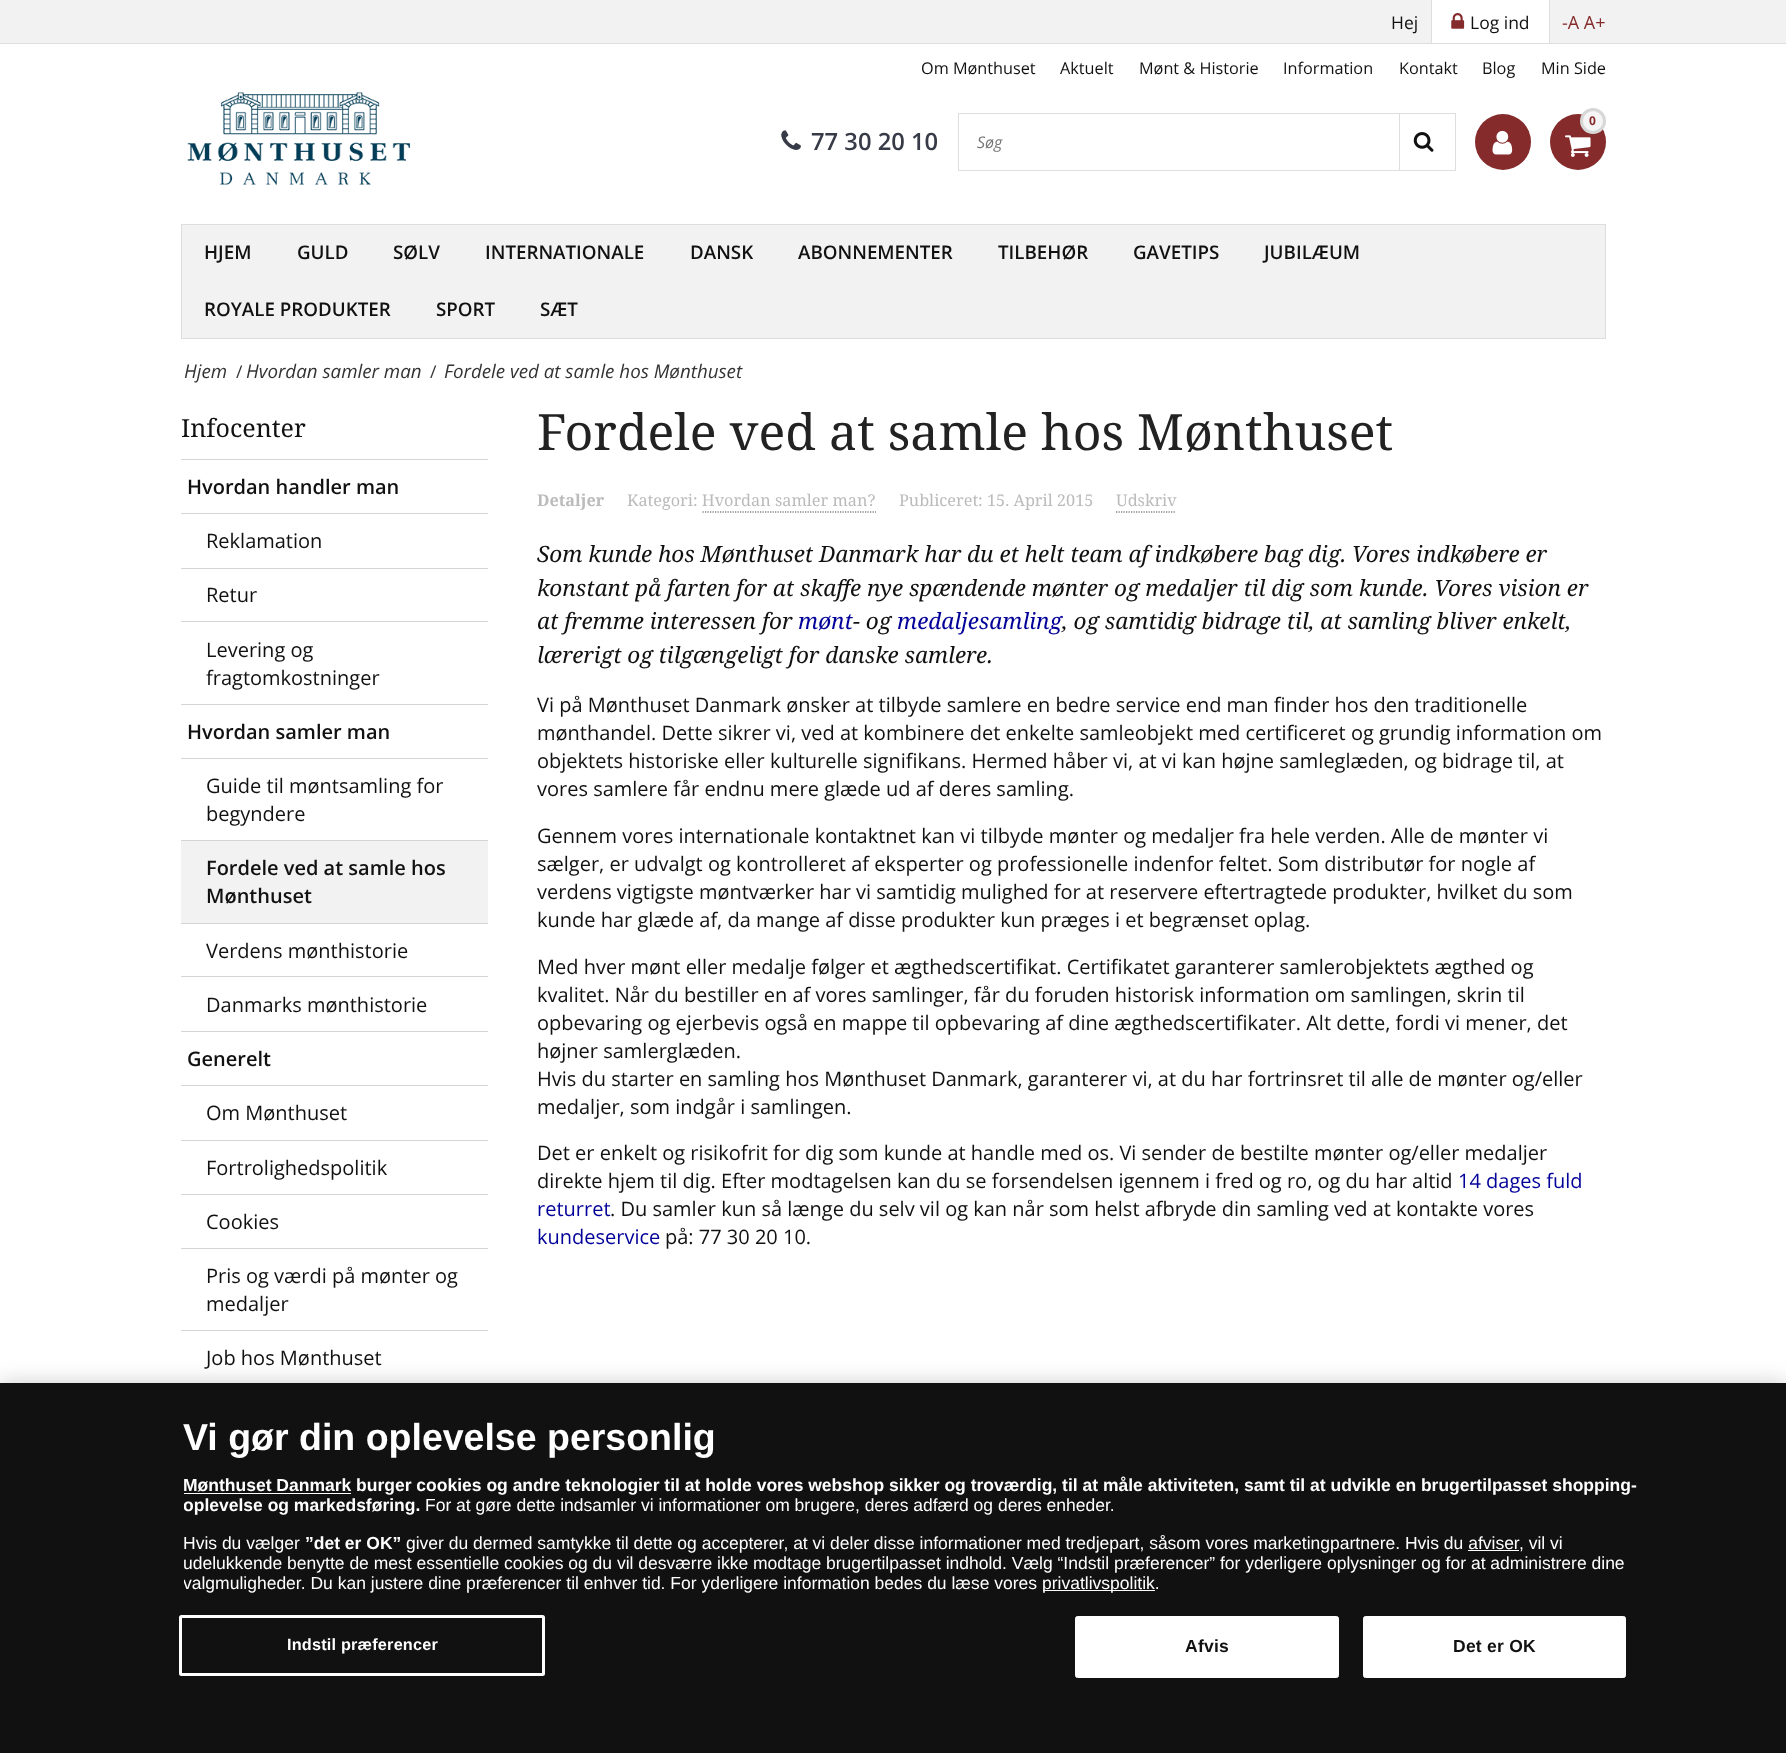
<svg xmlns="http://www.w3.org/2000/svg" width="1786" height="1753">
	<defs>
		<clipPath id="clip1"><rect x="184" y="1475" width="1460" height="135" /></clipPath>
	</defs>
	<rect width="100%" height="100%" fill="#FFFFFF" />
	<rect x="0" y="0" width="1786" height="43" fill="#F2F2F2" />
	<rect x="0" y="43" width="1786" height="1" fill="#DEDEDE" />
	<text x="1391" y="29" font-family="Open Sans" font-size="17.5" fill="#111111">Hej</text>
	<rect x="1432" y="0" width="117" height="43" fill="#FFFFFF" />
	<rect x="1549" y="0" width="1" height="44" fill="#DEDEDE" />
	<rect x="1431" y="0" width="1" height="44" fill="#DEDEDE" />
	<image x="1451" y="13" width="14" height="16" href="assets/img1.png" />
	<text x="1470" y="29" font-family="Open Sans" font-size="17.5" fill="#111111">Log ind</text>
	<text x="1562" y="29" font-family="Open Sans" font-size="18" fill="#852B2B">-A A+</text>
	<g font-family="Open Sans" font-size="16.25" fill="#111111">
		<text x="921" y="74">Om Mønthuset</text>
		<text x="1060" y="74">Aktuelt</text>
		<text x="1139" y="74">Mønt &amp; Historie</text>
		<text x="1283" y="74">Information</text>
		<text x="1399" y="74">Kontakt</text>
		<text x="1482" y="74">Blog</text>
		<text x="1541" y="74">Min Side</text>
	</g>
	<image x="187" y="92" width="223" height="93" href="assets/img2.png" />
	<circle cx="1503" cy="142" r="28" fill="#852B2B" />
	<image x="1492" y="130" width="21" height="25" href="assets/img3.png" />
	<circle cx="1578" cy="142" r="28" fill="#852B2B" />
	<circle cx="1593" cy="121" r="11.5" fill="#F6F5F5" stroke="#D7D7D7" stroke-width="3" />
	<text x="1589" y="125" font-family="Open Sans" font-size="12" font-weight="700" fill="#852B2B">0</text>
	<image x="1565" y="135" width="26" height="22" href="assets/img4.png" />
	<image x="781" y="130" width="20" height="20" href="assets/img5.png" />
	<text x="811" y="150" font-family="Open Sans" font-size="23.75" font-weight="600" fill="#373B48">77 30 20 10</text>
	<rect x="958.5" y="113.5" width="497" height="57" fill="none" stroke="#DEDEDE" />
	<text x="977" y="148" font-family="Open Sans" font-size="16" font-style="italic" fill="#757575">Søg</text>
	<rect x="1399" y="114" width="1" height="56" fill="#DEDEDE" />
	<image x="1413" y="132" width="21" height="20" href="assets/img6.png" />
	<rect x="181.5" y="224.5" width="1424" height="114" fill="#F2F2F2" stroke="#DDDDDD" />
	<g font-family="Open Sans" font-size="18.75" font-weight="600" fill="#111111">
		<text x="204" y="259">HJEM</text>
		<text x="297" y="259">GULD</text>
		<text x="393" y="259">SØLV</text>
		<text x="485" y="259">INTERNATIONALE</text>
		<text x="690" y="259">DANSK</text>
		<text x="798" y="259">ABONNEMENTER</text>
		<text x="998" y="259">TILBEHØR</text>
		<text x="1133" y="259">GAVETIPS</text>
		<text x="1264" y="259">JUBILÆUM</text>
		<text x="204" y="316">ROYALE PRODUKTER</text>
		<text x="436" y="316">SPORT</text>
		<text x="540" y="316">SÆT</text>
	</g>
	<text x="184" y="378" font-family="Open Sans" font-size="18.75" font-style="italic" fill="#333333">Hjem</text>
	<text x="236" y="378" font-family="Open Sans" font-size="17.5" fill="#333333">/</text>
	<text x="246" y="378" font-family="Open Sans" font-size="18.75" font-style="italic" fill="#333333">Hvordan samler man</text>
	<text x="430" y="378" font-family="Open Sans" font-size="17.5" fill="#333333">/</text>
	<text x="444" y="378" font-family="Open Sans" font-size="18.75" font-style="italic" fill="#333333">Fordele ved at samle hos Mønthuset</text>
	<text x="181" y="437" font-family="Noto Serif" font-size="25" fill="#111111">Infocenter</text>
	<rect x="181" y="459" width="307" height="1" fill="#D5D5D5" />
	<text x="187" y="494" font-family="Open Sans" font-size="20" font-weight="600" fill="#111111">Hvordan handler man</text>
	<rect x="181" y="513" width="307" height="1" fill="#D5D5D5" />
	<text x="206" y="548" font-family="Open Sans" font-size="20" fill="#111111">Reklamation</text>
	<rect x="181" y="568" width="307" height="1" fill="#D5D5D5" />
	<text x="206" y="602" font-family="Open Sans" font-size="20" fill="#111111">Retur</text>
	<rect x="181" y="621" width="307" height="1" fill="#D5D5D5" />
	<g font-family="Open Sans" font-size="20" fill="#111111">
		<text x="206" y="657">Levering og</text>
		<text x="206" y="685">fragtomkostninger</text>
	</g>
	<rect x="181" y="704" width="307" height="1" fill="#D5D5D5" />
	<text x="187" y="739" font-family="Open Sans" font-size="20" font-weight="600" fill="#111111">Hvordan samler man</text>
	<rect x="181" y="758" width="307" height="1" fill="#D5D5D5" />
	<g font-family="Open Sans" font-size="20" fill="#111111">
		<text x="206" y="793">Guide til møntsamling for</text>
		<text x="206" y="821">begyndere</text>
	</g>
	<rect x="181" y="840" width="307" height="1" fill="#D5D5D5" />
	<rect x="181" y="841" width="307" height="82" fill="#F2F2F2" />
	<g font-family="Open Sans" font-size="20" font-weight="600" fill="#111111">
		<text x="206" y="875">Fordele ved at samle hos</text>
		<text x="206" y="903">Mønthuset</text>
	</g>
	<rect x="181" y="923" width="307" height="1" fill="#D5D5D5" />
	<text x="206" y="958" font-family="Open Sans" font-size="20" fill="#111111">Verdens mønthistorie</text>
	<rect x="181" y="976" width="307" height="1" fill="#D5D5D5" />
	<text x="206" y="1012" font-family="Open Sans" font-size="20" fill="#111111">Danmarks mønthistorie</text>
	<rect x="181" y="1031" width="307" height="1" fill="#D5D5D5" />
	<text x="187" y="1066" font-family="Open Sans" font-size="20" font-weight="600" fill="#111111">Generelt</text>
	<rect x="181" y="1085" width="307" height="1" fill="#D5D5D5" />
	<text x="206" y="1120" font-family="Open Sans" font-size="20" fill="#111111">Om Mønthuset</text>
	<rect x="181" y="1140" width="307" height="1" fill="#D5D5D5" />
	<text x="206" y="1175" font-family="Open Sans" font-size="20" fill="#111111">Fortrolighedspolitik</text>
	<rect x="181" y="1194" width="307" height="1" fill="#D5D5D5" />
	<text x="206" y="1229" font-family="Open Sans" font-size="20" fill="#111111">Cookies</text>
	<rect x="181" y="1248" width="307" height="1" fill="#D5D5D5" />
	<g font-family="Open Sans" font-size="20" fill="#111111">
		<text x="206" y="1283">Pris og værdi på mønter og</text>
		<text x="206" y="1311">medaljer</text>
	</g>
	<rect x="181" y="1330" width="307" height="1" fill="#D5D5D5" />
	<text x="206" y="1365" font-family="Open Sans" font-size="20" fill="#111111">Job hos Mønthuset</text>
	<text x="537" y="450" font-family="Noto Serif" font-size="50" fill="#222222">Fordele ved at samle hos Mønthuset</text>
	<text x="537" y="506" font-family="Noto Serif" font-size="16.25" font-weight="700" fill="#BBBBBB">Detaljer</text>
	<text x="627" y="506" font-family="Noto Serif" font-size="16.25" fill="#BBBBBB">Kategori: Hvordan samler man?</text>
	<path d="M702.5 512H876" fill="none" stroke="#444444" stroke-width="1.2" stroke-dasharray="1.25 1.25" />
	<g font-family="Noto Serif" font-size="16.25" fill="#BBBBBB">
		<text x="899" y="506">Publiceret: 15. April 2015</text>
		<text x="1116" y="506">Udskriv</text>
	</g>
	<path d="M1116 512H1176" fill="none" stroke="#444444" stroke-width="1.2" stroke-dasharray="1.25 1.25" />
	<g font-family="Noto Serif" font-size="22.5" font-style="italic" fill="#111111">
		<text x="537" y="562">Som kunde hos Mønthuset Danmark har du et helt team af indkøbere bag dig. Vores indkøbere er</text>
		<text x="537" y="596">konstant på farten for at skaffe nye spændende mønter og medaljer til dig som kunde. Vores vision er</text>
		<text x="537" y="629">at fremme interessen for</text>
	</g>
	<text x="798" y="629" font-family="Noto Serif" font-size="22.5" font-style="italic" fill="#020099">mønt</text>
	<text x="853" y="629" font-family="Noto Serif" font-size="22.5" font-style="italic" fill="#111111">- og</text>
	<text x="897" y="629" font-family="Noto Serif" font-size="22.5" font-style="italic" fill="#020099">medaljesamling</text>
	<g font-family="Noto Serif" font-size="22.5" font-style="italic" fill="#111111">
		<text x="1062" y="629">, og samtidig bidrage til, at samling bliver enkelt,</text>
		<text x="537" y="663">lærerigt og tilgængeligt for danske samlere.</text>
	</g>
	<g font-family="Open Sans" font-size="20" fill="#111111">
		<text x="537" y="712">Vi på Mønthuset Danmark ønsker at tilbyde samlere en bedre service end man finder hos den traditionelle</text>
		<text x="537" y="740">mønthandel. Dette sikrer vi, ved at kombinere det enkelte samleobjekt med certificeret og grundig information om</text>
		<text x="537" y="768">objektets historiske eller kulturelle signifikans. Hermed håber vi, at vi kan højne samleglæden, og bidrage til, at</text>
		<text x="537" y="796">vores samlere får endnu mere glæde ud af deres samling.</text>
		<text x="537" y="843">Gennem vores internationale kontaktnet kan vi tilbyde mønter og medaljer fra hele verden. Alle de mønter vi</text>
		<text x="537" y="871">sælger, er udvalgt og kontrolleret af eksperter og professionelle indenfor feltet. Som distributør for nogle af</text>
		<text x="537" y="899">verdens vigtigste møntværker har vi samtidig mulighed for at reservere eftertragtede produkter, hvilket du som</text>
		<text x="537" y="927">kunde har glæde af, da mange af disse produkter kun præges i et begrænset oplag.</text>
		<text x="537" y="974">Med hver mønt eller medalje følger et ægthedscertifikat. Certifikatet garanterer samlerobjektets ægthed og</text>
		<text x="537" y="1002">kvalitet. Når du bestiller en af vores samlinger, får du foruden historisk information om samlingen, skrin til</text>
		<text x="537" y="1030">opbevaring og ejerbevis også en mappe til opbevaring af dine ægthedscertifikater. Alt dette, fordi vi mener, det</text>
		<text x="537" y="1058">højner samlerglæden.</text>
		<text x="537" y="1086">Hvis du starter en samling hos Mønthuset Danmark, garanterer vi, at du har fortrinsret til alle de mønter og/eller</text>
		<text x="537" y="1114">medaljer, som indgår i samlingen.</text>
		<text x="537" y="1160">Det er enkelt og risikofrit for dig som kunde at handle med os. Vi sender de bestilte mønter og/eller medaljer</text>
		<text x="537" y="1188">direkte hjem til dig. Efter modtagelsen kan du se forsendelsen igennem i fred og ro, og du har altid</text>
	</g>
	<g font-family="Open Sans" font-size="20" fill="#020099">
		<text x="1458" y="1188">14 dages fuld</text>
		<text x="537" y="1216">returret</text>
	</g>
	<text x="610" y="1216" font-family="Open Sans" font-size="20" fill="#111111">. Du samler kun så længe du selv vil og kan når som helst afbryde din samling ved at kontakte vores</text>
	<text x="537" y="1244" font-family="Open Sans" font-size="20" fill="#020099">kundeservice</text>
	<text x="665" y="1244" font-family="Open Sans" font-size="20" fill="#111111">på: 77 30 20 10.</text>
	<rect x="0" y="1383" width="1786" height="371" fill="#000000" fill-opacity="0.2" filter="blur(11px)" />
	<rect x="0" y="1383" width="1786" height="370" fill="#111111" />
	<text x="183" y="1450" font-family="Liberation Sans" font-size="37.5" font-weight="700" fill="#FFFFFF">Vi gør din oplevelse personlig</text>
	<rect x="184" y="1493" width="167" height="1" fill="#FFFFFF" />
	<text x="183" y="1491" font-family="Liberation Sans" font-size="17.5" font-weight="700" fill="#FFFFFF">Mønthuset Danmark burger cookies og andre teknologier til at holde vores webshop sikker og troværdig, til at måle aktiviteten, samt til at udvikle en brugertilpasset shopping-</text>
	<g clip-path="url(#clip1)">
		<text x="183" y="1511" font-family="Liberation Sans" font-size="17.5" font-weight="700" fill="#FFFFFF">oplevelse og markedsføring.</text>
	</g>
	<g font-family="Liberation Sans" font-size="17.5" fill="#FFFFFF">
		<text x="425" y="1511">For at gøre dette indsamler vi informationer om brugere, deres adfærd og deres enheder.</text>
		<text x="183" y="1549">Hvis du vælger</text>
	</g>
	<text x="305" y="1549" font-family="Liberation Sans" font-size="17.5" font-weight="700" fill="#FFFFFF">”det er OK”</text>
	<g font-family="Liberation Sans" font-size="17.5" fill="#FFFFFF">
		<text x="406" y="1549">giver du dermed samtykke til dette og accepterer, at vi deler disse informationer med tredjepart, såsom vores marketingpartnere. Hvis du afviser</text>
		<text x="1519" y="1549">, vil vi</text>
	</g>
	<rect x="1468" y="1550" width="51" height="1" fill="#FFFFFF" />
	<text x="183" y="1569" font-family="Liberation Sans" font-size="17.5" fill="#FFFFFF">udelukkende benytte de mest essentielle cookies og du vil desværre ikke modtage brugertilpasset indhold. Vælg “Indstil præferencer” for yderligere oplysninger og for at administrere dine</text>
	<g clip-path="url(#clip1)">
		<text x="183" y="1589" font-family="Liberation Sans" font-size="17.5" fill="#FFFFFF">valgmuligheder. Du kan justere dine præferencer til enhver tid. For yderligere information bedes du læse vores</text>
	</g>
	<rect x="1043" y="1590" width="112" height="1" fill="#FFFFFF" />
	<text x="1042" y="1589" font-family="Liberation Sans" font-size="17.5" fill="#FFFFFF">privatlivspolitik.</text>
	<rect x="180.5" y="1616.5" width="363" height="58" rx="1" fill="none" stroke="#FFFFFF" stroke-width="3" />
	<text x="287" y="1650" font-family="Liberation Sans" font-size="16.25" font-weight="700" letter-spacing="0.2" fill="#FFFFFF">Indstil præferencer</text>
	<rect x="1075.5" y="1616.5" width="263" height="61" rx="2" fill="#FFFFFF" stroke="#FFFFFF" />
	<text x="1185" y="1652" font-family="Liberation Sans" font-size="17.5" font-weight="700" letter-spacing="0.25" fill="#111111">Afvis</text>
	<rect x="1363.5" y="1616.5" width="262" height="61" rx="2" fill="#FFFFFF" stroke="#FFFFFF" />
	<text x="1453" y="1652" font-family="Liberation Sans" font-size="17.5" font-weight="700" letter-spacing="0.25" fill="#111111">Det er OK</text>
</svg>
